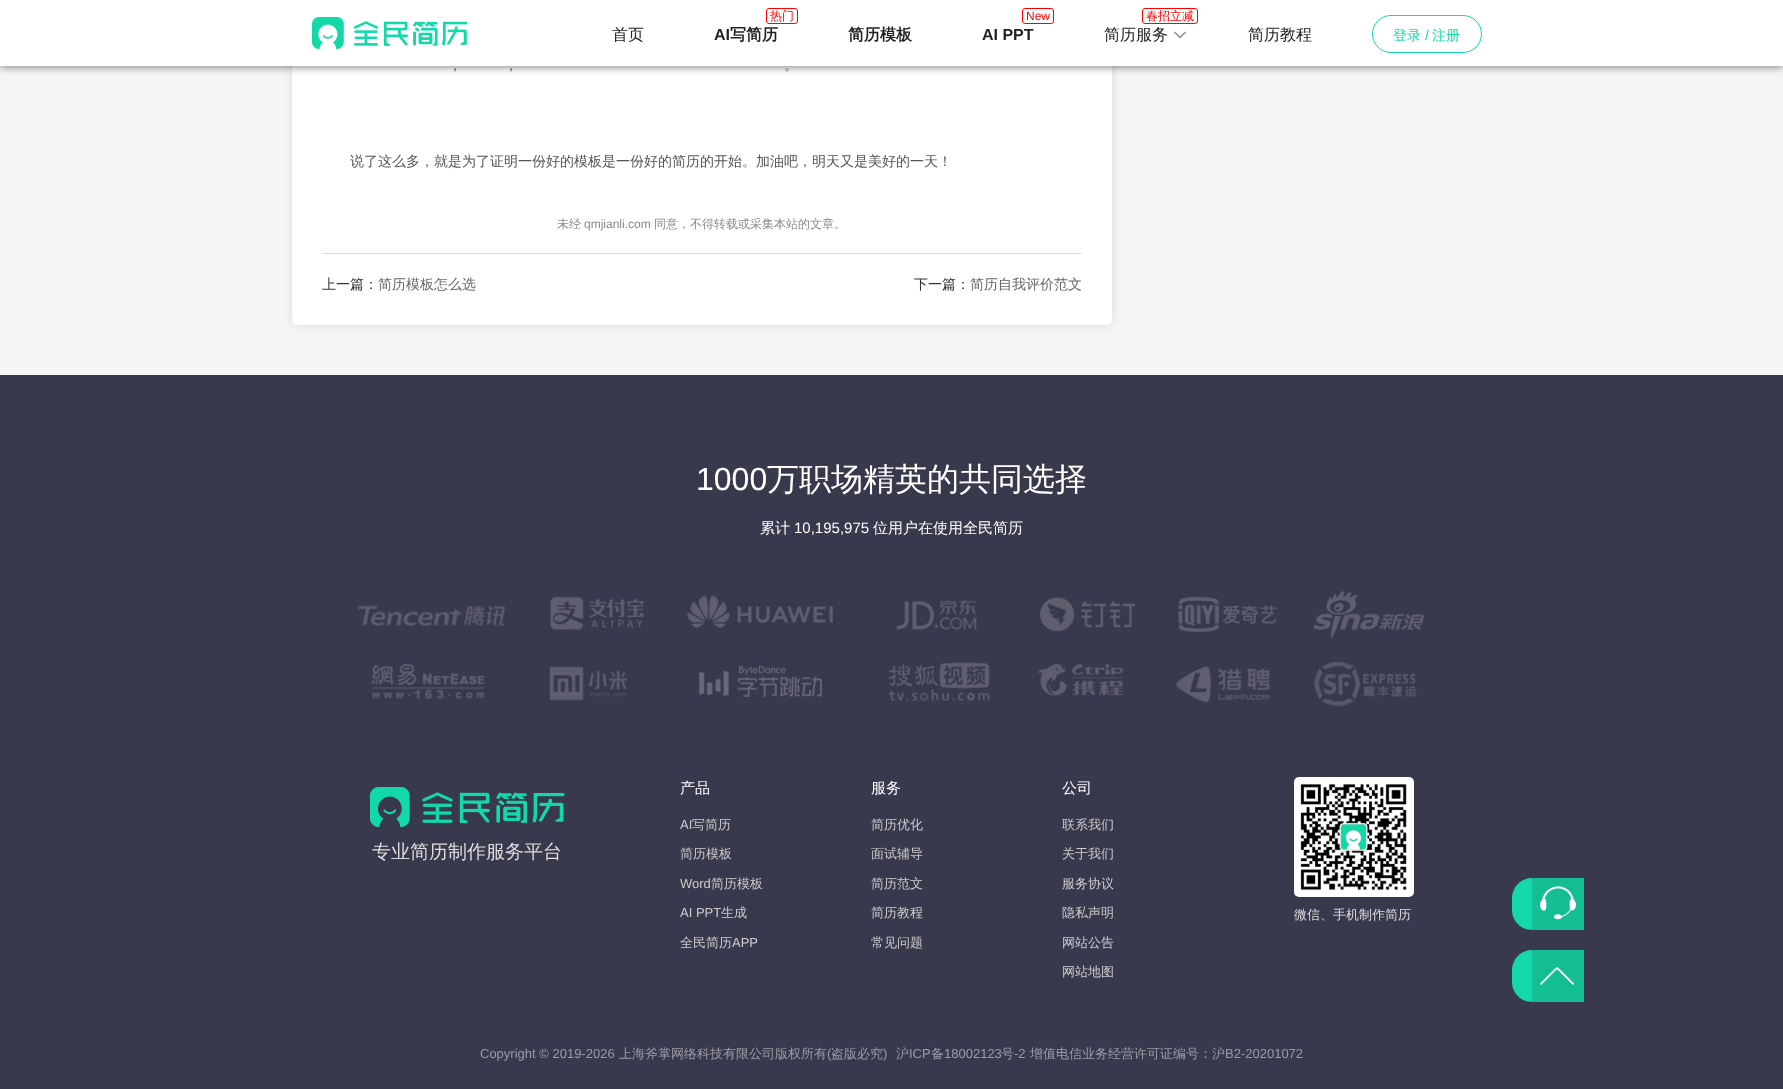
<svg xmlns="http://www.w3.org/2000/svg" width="1783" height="1089">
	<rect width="100%" height="100%" fill="#F5F5F5" />
	<rect x="292" y="-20" width="820" height="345" rx="5" fill="#000000" fill-opacity="0.1" filter="blur(5px)" />
	<rect x="292" y="-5" width="820" height="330" rx="5" fill="#FFFFFF" />
	<rect x="0" y="0" width="1783" height="66" fill="#000000" fill-opacity="0.6" filter="blur(5px)" />
	<rect x="0" y="0" width="1783" height="66" fill="#FFFFFF" />
	<image x="312" y="17" width="155" height="32" href="assets/img1.png" />
	<text x="612" y="40" font-family="WenQuanYi Zen Hei" font-size="16" font-weight="500" fill="#222222">首页</text>
	<rect x="766.5" y="8.5" width="31" height="15" rx="2.5" fill="none" stroke="#FF0000" />
	<text x="770" y="20" font-family="WenQuanYi Zen Hei" font-size="12" font-weight="500" fill="#FF0000">热门</text>
	<text x="714" y="40" font-family="Liberation Sans" font-size="16" font-weight="700" fill="#222222">AI</text>
	<g font-family="WenQuanYi Zen Hei" font-size="16" font-weight="700" fill="#222222">
		<text x="730" y="40">写简历</text>
		<text x="848" y="40">简历模板</text>
	</g>
	<rect x="1022.5" y="8.5" width="31" height="15" rx="2.5" fill="none" stroke="#FF0000" />
	<text x="1026" y="20" font-family="Liberation Sans" font-size="12" fill="#FF0000">New</text>
	<text x="982" y="40" font-family="Liberation Sans" font-size="16" font-weight="700" fill="#222222">AI PPT</text>
	<rect x="1142.5" y="8.5" width="55" height="15" rx="2.5" fill="none" stroke="#FF0000" />
	<text x="1146" y="20" font-family="WenQuanYi Zen Hei" font-size="12" font-weight="500" fill="#FF0000">春招立减</text>
	<text x="1104" y="40" font-family="WenQuanYi Zen Hei" font-size="16" font-weight="500" fill="#222222">简历服务</text>
	<image x="1174" y="31" width="12" height="8" href="assets/img2.png" />
	<text x="1248" y="40" font-family="WenQuanYi Zen Hei" font-size="16" font-weight="500" fill="#222222">简历教程</text>
	<rect x="1372.5" y="15.5" width="109" height="37" rx="18.5" fill="none" stroke="#13D8A7" />
	<text x="1393" y="40" font-family="WenQuanYi Zen Hei" font-size="14" font-weight="500" fill="#13D8A7">登录</text>
	<text x="1425" y="40" font-family="Liberation Sans" font-size="14" fill="#13D8A7">/</text>
	<text x="1432" y="40" font-family="WenQuanYi Zen Hei" font-size="14" font-weight="500" fill="#13D8A7">注册</text>
	<g font-family="WenQuanYi Zen Hei" font-size="14" font-weight="500" fill="#555555">
		<text x="448" y="70">，</text>
		<text x="504" y="70">，</text>
		<text x="784" y="70">。</text>
		<text x="350" y="166">说了这么多，就是为了证明一份好的模板是一份好的简历的开始。加油吧，明天又是美好的一天！</text>
	</g>
	<text x="557" y="228" font-family="WenQuanYi Zen Hei" font-size="12" font-weight="500" fill="#888888">未经</text>
	<text x="584" y="228" font-family="Liberation Sans" font-size="12" fill="#888888">qmjianli.com</text>
	<text x="654" y="228" font-family="WenQuanYi Zen Hei" font-size="12" font-weight="500" fill="#888888">同意，不得转载或采集本站的文章。</text>
	<rect x="322" y="253" width="760" height="1" fill="#DDDDDD" />
	<text x="322" y="289" font-family="WenQuanYi Zen Hei" font-size="14" font-weight="500" fill="#333333">上一篇：</text>
	<text x="378" y="289" font-family="WenQuanYi Zen Hei" font-size="14" font-weight="500" fill="#666666">简历模板怎么选</text>
	<text x="914" y="289" font-family="WenQuanYi Zen Hei" font-size="14" font-weight="500" fill="#333333">下一篇：</text>
	<text x="970" y="289" font-family="WenQuanYi Zen Hei" font-size="14" font-weight="500" fill="#666666">简历自我评价范文</text>
	<rect x="0" y="375" width="1783" height="714" fill="#39394D" />
	<text x="696" y="490" font-family="Liberation Sans" font-size="32" fill="#FFFFFF">1000</text>
	<text x="767" y="490" font-family="WenQuanYi Zen Hei" font-size="32" font-weight="500" fill="#FFFFFF">万职场精英的共同选择</text>
	<text x="760" y="533" font-family="WenQuanYi Zen Hei" font-size="15" font-weight="500" fill="#FFFFFF">累计</text>
	<text x="794" y="533" font-family="Liberation Sans" font-size="15" fill="#FFFFFF">10,195,975</text>
	<text x="873" y="533" font-family="WenQuanYi Zen Hei" font-size="15" font-weight="500" fill="#FFFFFF">位用户在使用全民简历</text>
	<image x="358" y="591" width="1067" height="116" href="assets/img3.png" />
	<image x="370" y="787" width="195" height="40" href="assets/img4.png" />
	<text x="372" y="858" font-family="WenQuanYi Zen Hei" font-size="19" font-weight="500" fill="#DDDDDD">专业简历制作服务平台</text>
	<text x="680" y="793" font-family="WenQuanYi Zen Hei" font-size="15" font-weight="500" fill="#FFFFFF">产品</text>
	<text x="680" y="829" font-family="Liberation Sans" font-size="13" fill="#CCCCCC">AI</text>
	<g font-family="WenQuanYi Zen Hei" font-size="13" font-weight="500" fill="#CCCCCC">
		<text x="692" y="829">写简历</text>
		<text x="680" y="858">简历模板</text>
	</g>
	<text x="680" y="888" font-family="Liberation Sans" font-size="13" fill="#CCCCCC">Word</text>
	<text x="711" y="888" font-family="WenQuanYi Zen Hei" font-size="13" font-weight="500" fill="#CCCCCC">简历模板</text>
	<text x="680" y="917" font-family="Liberation Sans" font-size="13" fill="#CCCCCC">AI PPT</text>
	<g font-family="WenQuanYi Zen Hei" font-size="13" font-weight="500" fill="#CCCCCC">
		<text x="721" y="917">生成</text>
		<text x="680" y="947">全民简历</text>
	</g>
	<text x="732" y="947" font-family="Liberation Sans" font-size="13" fill="#CCCCCC">APP</text>
	<text x="871" y="793" font-family="WenQuanYi Zen Hei" font-size="15" font-weight="500" fill="#FFFFFF">服务</text>
	<g font-family="WenQuanYi Zen Hei" font-size="13" font-weight="500" fill="#CCCCCC">
		<text x="871" y="829">简历优化</text>
		<text x="871" y="858">面试辅导</text>
		<text x="871" y="888">简历范文</text>
		<text x="871" y="917">简历教程</text>
		<text x="871" y="947">常见问题</text>
	</g>
	<text x="1062" y="793" font-family="WenQuanYi Zen Hei" font-size="15" font-weight="500" fill="#FFFFFF">公司</text>
	<g font-family="WenQuanYi Zen Hei" font-size="13" font-weight="500" fill="#CCCCCC">
		<text x="1062" y="829">联系我们</text>
		<text x="1062" y="858">关于我们</text>
		<text x="1062" y="888">服务协议</text>
		<text x="1062" y="917">隐私声明</text>
		<text x="1062" y="947">网站公告</text>
		<text x="1062" y="976">网站地图</text>
	</g>
	<image x="1294" y="777" width="120" height="120" href="assets/img5.png" />
	<text x="1294" y="919" font-family="WenQuanYi Zen Hei" font-size="13" font-weight="500" fill="#DDDDDD">微信、手机制作简历</text>
	<text x="480" y="1058" font-family="Liberation Sans" font-size="13" fill="#9C9CA6">Copyright © 2019-2026</text>
	<text x="619" y="1058" font-family="WenQuanYi Zen Hei" font-size="13" font-weight="500" fill="#9C9CA6">上海斧掌网络科技有限公司版权所有</text>
	<text x="827" y="1058" font-family="Liberation Sans" font-size="13" fill="#9C9CA6">(</text>
	<text x="831" y="1058" font-family="WenQuanYi Zen Hei" font-size="13" font-weight="500" fill="#9C9CA6">盗版必究</text>
	<text x="883" y="1058" font-family="Liberation Sans" font-size="13" fill="#9C9CA6">)</text>
	<text x="896" y="1058" font-family="WenQuanYi Zen Hei" font-size="13" font-weight="500" fill="#9C9CA6">沪</text>
	<text x="909" y="1058" font-family="Liberation Sans" font-size="13" fill="#9C9CA6">ICP</text>
	<text x="931" y="1058" font-family="WenQuanYi Zen Hei" font-size="13" font-weight="500" fill="#9C9CA6">备</text>
	<text x="944" y="1058" font-family="Liberation Sans" font-size="13" fill="#9C9CA6">18002123</text>
	<text x="1001" y="1058" font-family="WenQuanYi Zen Hei" font-size="13" font-weight="500" fill="#9C9CA6">号</text>
	<text x="1014" y="1058" font-family="Liberation Sans" font-size="13" fill="#9C9CA6">-2</text>
	<text x="1030" y="1058" font-family="WenQuanYi Zen Hei" font-size="13" font-weight="500" fill="#9C9CA6">增值电信业务经营许可证编号：沪</text>
	<text x="1225" y="1058" font-family="Liberation Sans" font-size="13" fill="#9C9CA6">B2-20201072</text>
	<rect x="1532" y="878" width="52" height="52" fill="#14BD93" />
	<path d="M1532 878V930C1521 930 1512 921 1512 910V898C1512 887 1521 878 1532 878Z" fill="#13D8A7" />
	<image x="1540" y="886" width="36" height="34" href="assets/img6.png" />
	<rect x="1532" y="950" width="52" height="52" fill="#14BD93" />
	<path d="M1532 950V1002C1521 1002 1512 993 1512 982V970C1512 959 1521 950 1532 950Z" fill="#13D8A7" />
	<image x="1540" y="967" width="34" height="18" href="assets/img7.png" />
</svg>
